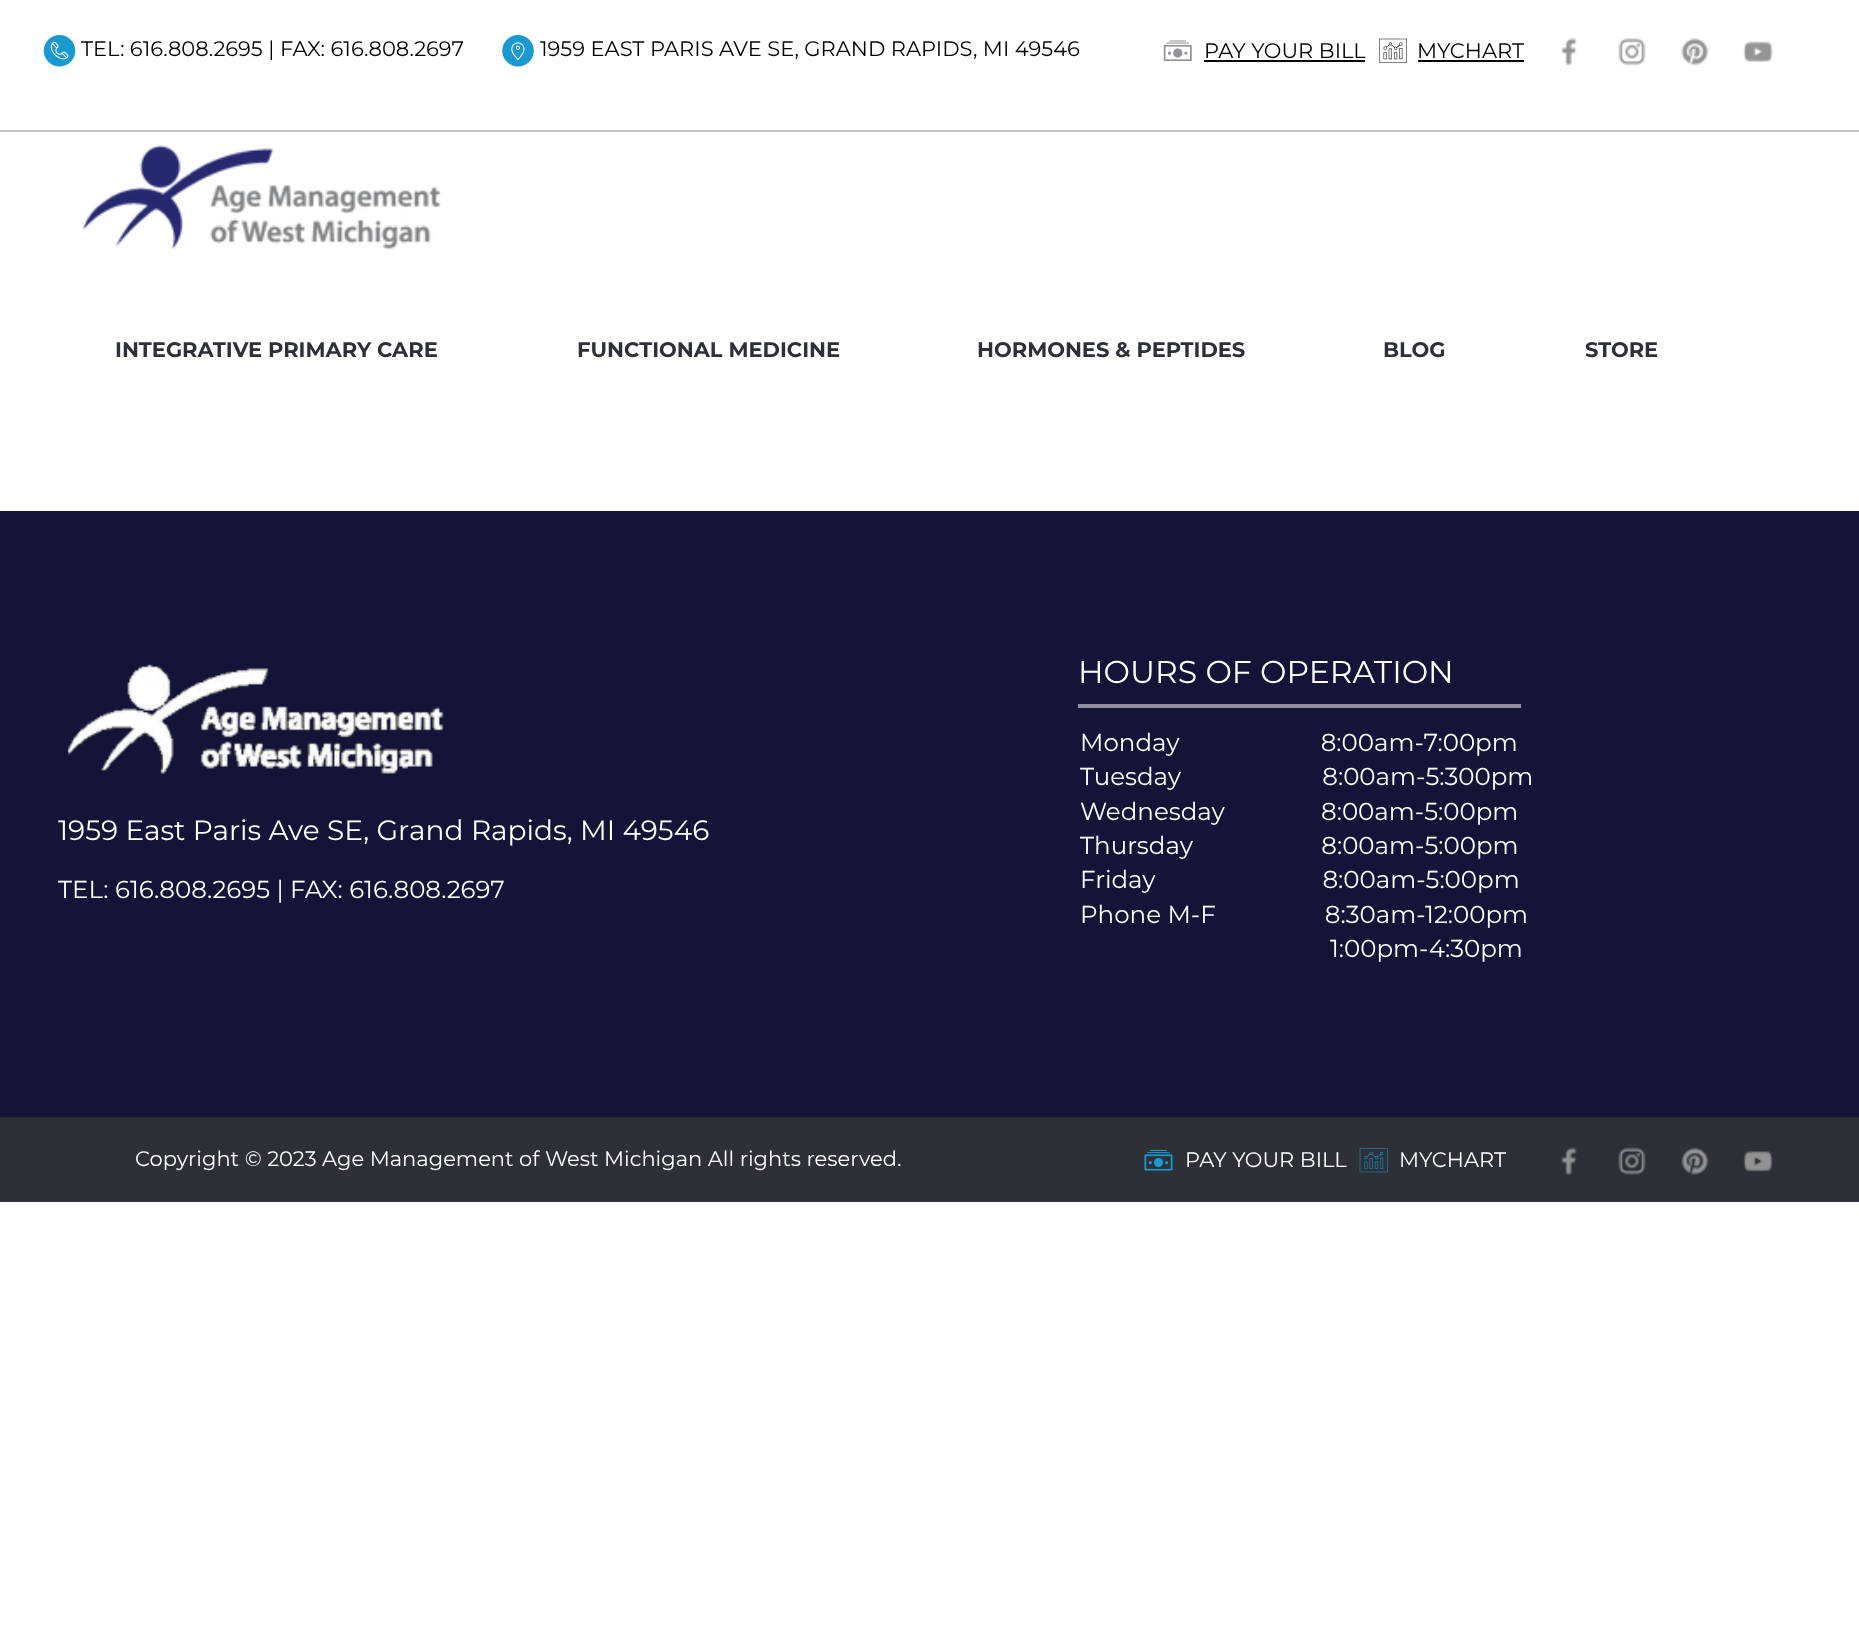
<svg xmlns="http://www.w3.org/2000/svg" width="1859" height="1647">
	<rect width="100%" height="100%" fill="#FFFFFF" />
	<image x="43" y="35" width="33" height="32" href="assets/img1.png" />
	<text x="81" y="56" font-family="Montserrat" font-size="21" fill="#000000">TEL: 616.808.2695 | FAX: 616.808.2697</text>
	<image x="502" y="35" width="32" height="32" href="assets/img2.png" />
	<text x="540" y="56" font-family="Montserrat" font-size="21" fill="#000000">1959 EAST PARIS AVE SE, GRAND RAPIDS, MI 49546</text>
	<image x="1163" y="40" width="29" height="22" href="assets/img3.png" />
	<text x="1204" y="58" font-family="Montserrat" font-size="21" fill="#000000">PAY YOUR BILL</text>
	<rect x="1204" y="60" width="161" height="2" fill="#000000" />
	<image x="1379" y="38" width="28" height="25" href="assets/img4.png" />
	<text x="1417" y="58" font-family="Montserrat" font-size="21" fill="#000000">MYCHART</text>
	<rect x="1418" y="60" width="106" height="2" fill="#000000" />
	<image x="1560" y="38" width="17" height="28" href="assets/img5.png" />
	<image x="1618" y="38" width="28" height="28" href="assets/img6.png" />
	<image x="1681" y="38" width="28" height="28" href="assets/img7.png" />
	<image x="1743" y="41" width="30" height="22" href="assets/img8.png" />
	<rect x="0" y="130" width="1859" height="2" fill="#C4C4C4" />
	<image x="82" y="145" width="360" height="104" href="assets/img9.png" />
	<g font-family="Montserrat" font-size="21" font-weight="700" fill="#2E3037">
		<text x="115" y="357">INTEGRATIVE PRIMARY CARE</text>
		<text x="577" y="357">FUNCTIONAL MEDICINE</text>
		<text x="977" y="357">HORMONES &amp; PEPTIDES</text>
		<text x="1383" y="357">BLOG</text>
		<text x="1585" y="357">STORE</text>
	</g>
	<rect x="0" y="511" width="1859" height="606" fill="#131438" />
	<image x="67" y="664" width="377" height="110" href="assets/img10.png" />
	<text x="58" y="840" font-family="Montserrat" font-size="28" fill="#FFFFFF">1959 East Paris Ave SE, Grand Rapids, MI 49546</text>
	<text x="58" y="898" font-family="Montserrat" font-size="24.5" fill="#FFFFFF">TEL: 616.808.2695 | FAX: 616.808.2697</text>
	<text x="1078" y="683" font-family="Montserrat" font-size="31.5" fill="#FFFFFF">HOURS OF OPERATION</text>
	<rect x="1078" y="704" width="443" height="4" fill="#8E8E9F" />
	<g font-family="Montserrat" font-size="24.5" fill="#FFFFFF">
		<text x="1080" y="751" xml:space="preserve">Monday                      8:00am-7:00pm</text>
		<text x="1080" y="785" xml:space="preserve">Tuesday                      8:00am-5:300pm</text>
		<text x="1080" y="820" xml:space="preserve">Wednesday               8:00am-5:00pm</text>
		<text x="1080" y="854" xml:space="preserve">Thursday                    8:00am-5:00pm</text>
		<text x="1080" y="888" xml:space="preserve">Friday                          8:00am-5:00pm</text>
		<text x="1080" y="923" xml:space="preserve">Phone M-F                 8:30am-12:00pm</text>
		<text x="1330" y="957">1:00pm-4:30pm</text>
	</g>
	<rect x="0" y="1117" width="1859" height="85" fill="#2E3037" />
	<text x="135" y="1166" font-family="Montserrat" font-size="21" fill="#FFFFFF">Copyright © 2023 Age Management of West Michigan All rights reserved.</text>
	<image x="1144" y="1149" width="29" height="22" href="assets/img11.png" />
	<text x="1185" y="1167" font-family="Montserrat" font-size="21" fill="#FFFFFF">PAY YOUR BILL</text>
	<image x="1359" y="1148" width="29" height="25" href="assets/img12.png" />
	<text x="1399" y="1167" font-family="Montserrat" font-size="21" fill="#FFFFFF">MYCHART</text>
	<image x="1560" y="1147" width="17" height="28" href="assets/img13.png" />
	<image x="1618" y="1147" width="28" height="28" href="assets/img14.png" />
	<image x="1681" y="1147" width="28" height="28" href="assets/img15.png" />
	<image x="1743" y="1151" width="30" height="21" href="assets/img16.png" />
</svg>
